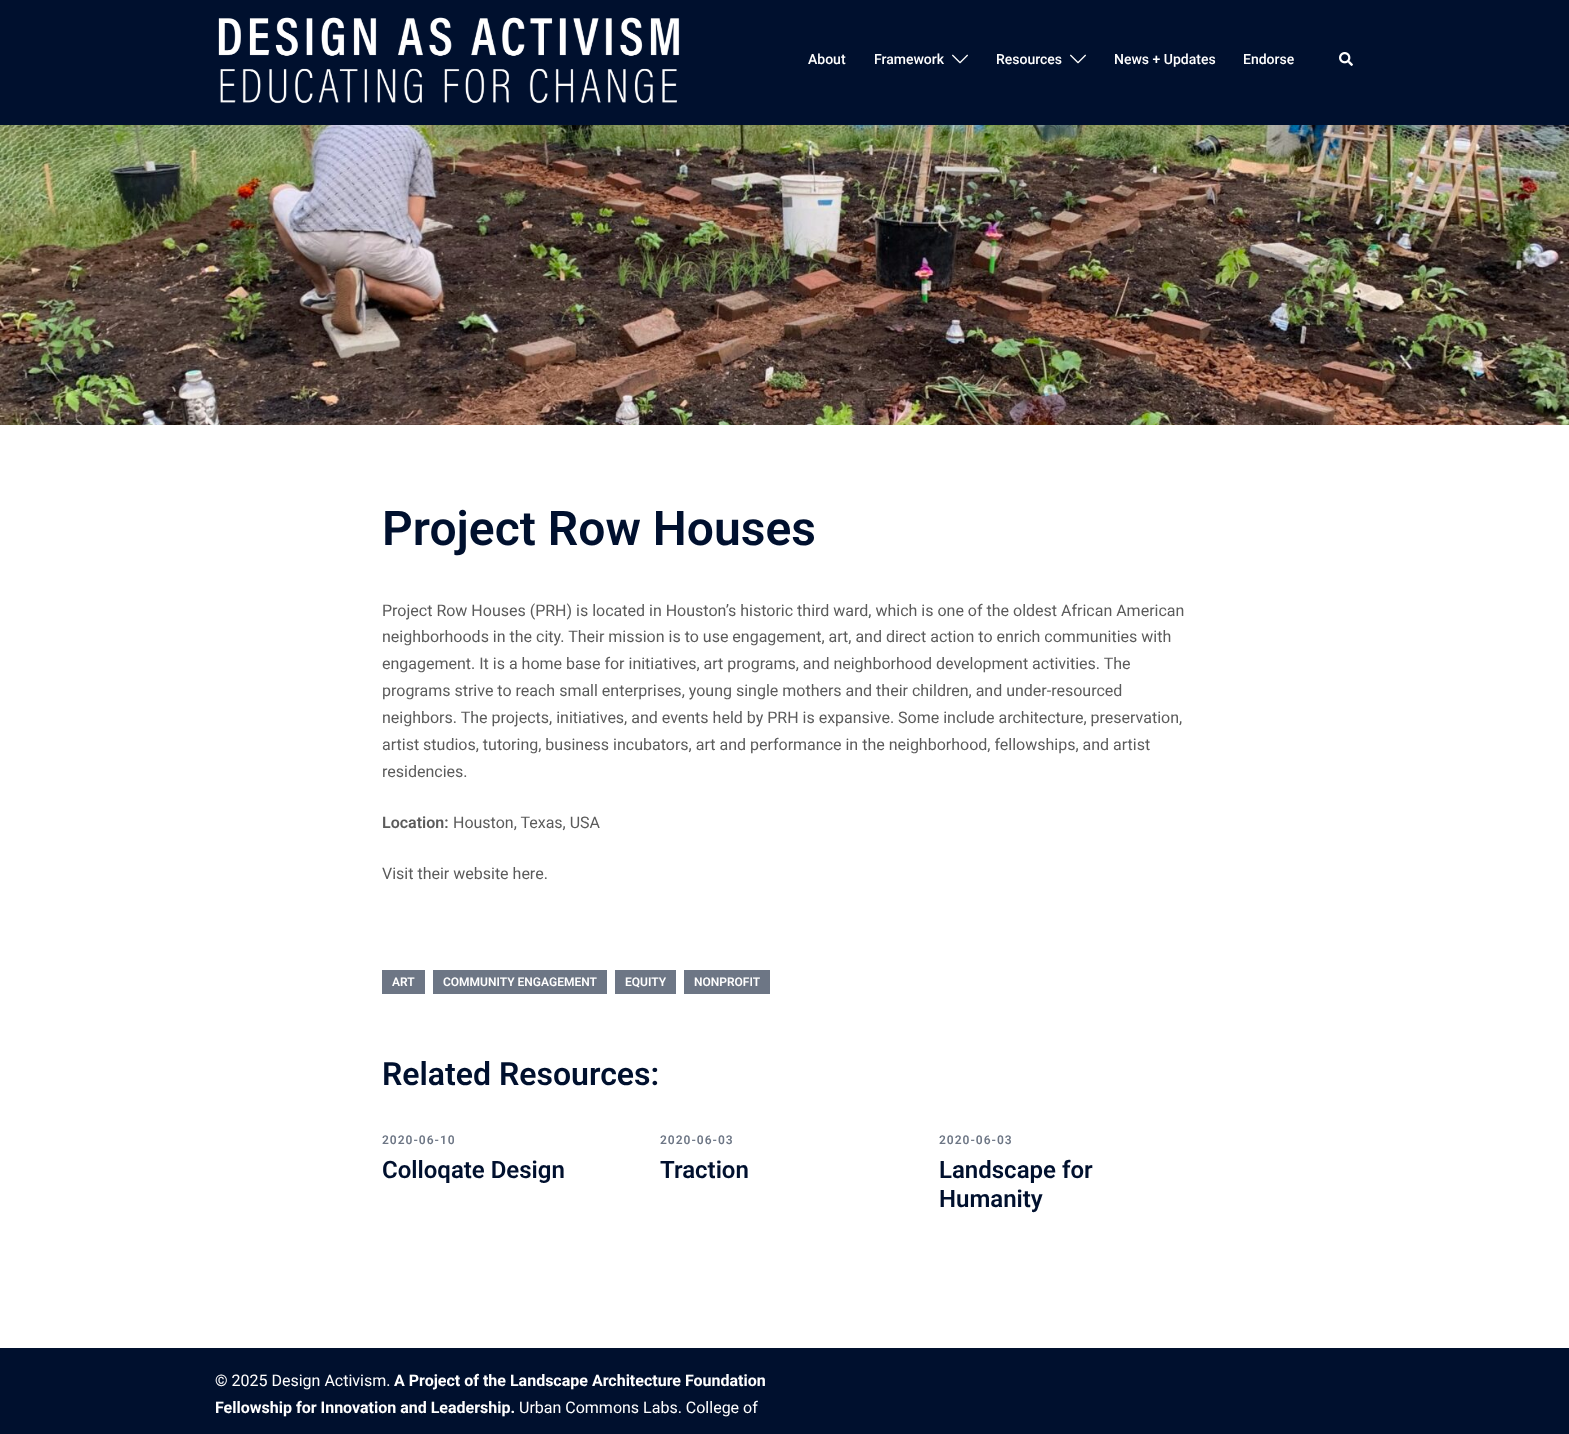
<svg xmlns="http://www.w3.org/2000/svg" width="1569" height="1434">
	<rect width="100%" height="100%" fill="#FFFFFF" />
	<rect x="0" y="0" width="1569" height="125" fill="#00102E" />
	<image x="218" y="17" width="462" height="87" href="assets/img1.png" />
	<g font-family="Roboto" font-size="14" font-weight="500" fill="#FFFFFF">
		<text x="808" y="64">About</text>
		<text x="874" y="64">Framework</text>
	</g>
	<image x="952" y="54" width="16" height="10" href="assets/img2.png" />
	<text x="996" y="64" font-family="Roboto" font-size="14" font-weight="500" fill="#FFFFFF">Resources</text>
	<image x="1070" y="54" width="16" height="10" href="assets/img2.png" />
	<g font-family="Roboto" font-size="14" font-weight="500" fill="#FFFFFF">
		<text x="1114" y="64">News + Updates</text>
		<text x="1243" y="64">Endorse</text>
	</g>
	<image x="1339" y="52" width="14" height="14" href="assets/img3.png" />
	<image x="0" y="125" width="1569" height="300" href="assets/img4.png" />
	<text x="382" y="545" font-family="Roboto" font-size="48" font-weight="600" fill="#00102E">Project Row Houses</text>
	<g font-family="Roboto" font-size="16" fill="#5B5B5B">
		<text x="382" y="616">Project Row Houses (PRH) is located in Houston’s historic third ward, which is one of the oldest African American</text>
		<text x="382" y="642">neighborhoods in the city. Their mission is to use engagement, art, and direct action to enrich communities with</text>
		<text x="382" y="669">engagement. It is a home base for initiatives, art programs, and neighborhood development activities. The</text>
		<text x="382" y="696">programs strive to reach small enterprises, young single mothers and their children, and under-resourced</text>
		<text x="382" y="723">neighbors. The projects, initiatives, and events held by PRH is expansive. Some include architecture, preservation,</text>
		<text x="382" y="750">artist studios, tutoring, business incubators, art and performance in the neighborhood, fellowships, and artist</text>
		<text x="382" y="777">residencies.</text>
	</g>
	<text x="382" y="828" font-family="Roboto" font-size="16" font-weight="600" fill="#5B5B5B">Location:</text>
	<g font-family="Roboto" font-size="16" fill="#5B5B5B">
		<text x="453" y="828">Houston, Texas, USA</text>
		<text x="382" y="879">Visit their website here.</text>
	</g>
	<rect x="382" y="970" width="43" height="24" fill="#6D7685" />
	<text x="392" y="986" font-family="Roboto" font-size="12" font-weight="600" fill="#FFFFFF">ART</text>
	<rect x="433" y="970" width="174" height="24" fill="#6D7685" />
	<text x="443" y="986" font-family="Roboto" font-size="12" font-weight="600" fill="#FFFFFF">COMMUNITY ENGAGEMENT</text>
	<rect x="615" y="970" width="61" height="24" fill="#6D7685" />
	<text x="625" y="986" font-family="Roboto" font-size="12" font-weight="600" fill="#FFFFFF">EQUITY</text>
	<rect x="684" y="970" width="86" height="24" fill="#6D7685" />
	<text x="694" y="986" font-family="Roboto" font-size="12" font-weight="600" fill="#FFFFFF">NONPROFIT</text>
	<text x="382" y="1085" font-family="Roboto" font-size="32" font-weight="600" fill="#00102E">Related Resources:</text>
	<text x="382" y="1144" font-family="Roboto" font-size="12" font-weight="600" letter-spacing="1" fill="#6D7685">2020-06-10</text>
	<text x="382" y="1178" font-family="Roboto" font-size="24" font-weight="600" fill="#00102E">Colloqate Design</text>
	<text x="660" y="1144" font-family="Roboto" font-size="12" font-weight="600" letter-spacing="1" fill="#6D7685">2020-06-03</text>
	<text x="660" y="1178" font-family="Roboto" font-size="24" font-weight="600" fill="#00102E">Traction</text>
	<text x="939" y="1144" font-family="Roboto" font-size="12" font-weight="600" letter-spacing="1" fill="#6D7685">2020-06-03</text>
	<g font-family="Roboto" font-size="24" font-weight="600" fill="#00102E">
		<text x="939" y="1178">Landscape for</text>
		<text x="939" y="1207">Humanity</text>
	</g>
	<rect x="0" y="1348" width="1569" height="86" fill="#00102E" />
	<text x="215" y="1386" font-family="Roboto" font-size="16" fill="#FFFFFF">© 2025 Design Activism.</text>
	<g font-family="Roboto" font-size="16" font-weight="700" fill="#FFFFFF">
		<text x="394" y="1386">A Project of the Landscape Architecture Foundation</text>
		<text x="215" y="1413">Fellowship for Innovation and Leadership.</text>
	</g>
	<text x="519" y="1413" font-family="Roboto" font-size="16" fill="#FFFFFF">Urban Commons Labs. College of</text>
</svg>
